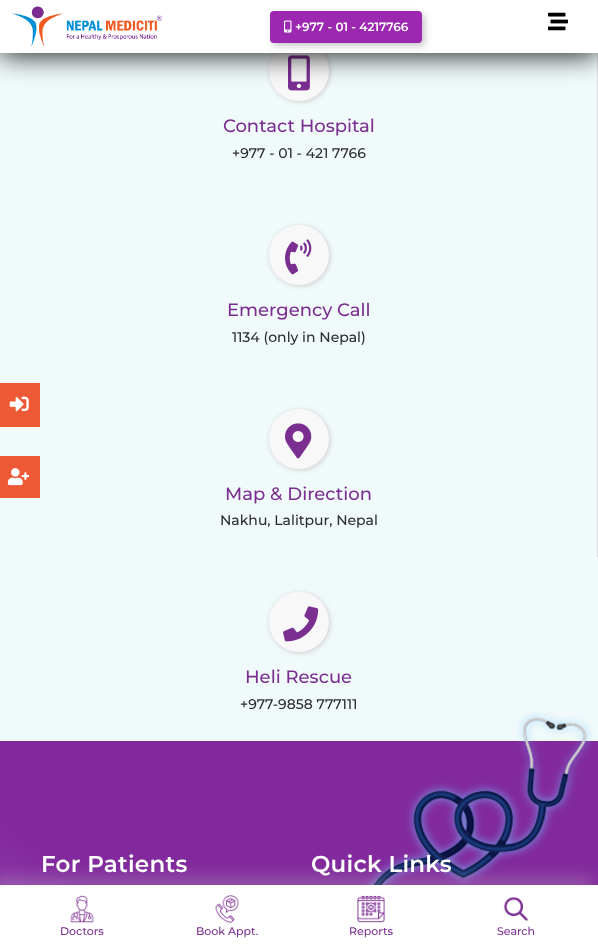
<svg xmlns="http://www.w3.org/2000/svg" width="598" height="949">
	<defs>
		<linearGradient id="g1" gradientUnits="userSpaceOnUse" x1="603" y1="745" x2="-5.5" y2="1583"><stop offset="0.4" stop-color="#822A9D" /><stop offset="0.6" stop-color="#A24DBF" /><stop offset="0.8" stop-color="#BE6FD7" /><stop offset="1" stop-color="#B675CB" /></linearGradient>
	</defs>
	<rect width="100%" height="100%" fill="#F1FAFB" />
	<rect x="597" y="53" width="1" height="504" fill="#DDDFE1" />
	<rect x="270" y="42" width="60" height="60" rx="30" fill="#CCCCCC" filter="blur(2.5px)" />
	<circle cx="299" cy="71" r="30" fill="#F9F8F8" />
	<image x="288" y="55" width="22" height="36" href="assets/img5.png" />
	<rect x="0" y="2" width="598" height="53" fill="#000000" fill-opacity="0.9" filter="blur(14px)" />
	<rect x="0" y="0" width="598" height="53" fill="#FFFFFF" />
	<image x="12" y="6" width="150" height="41" href="assets/img1.png" />
	<rect x="273" y="14" width="152" height="32" rx="4" fill="#1A1919" fill-opacity="0.24" filter="blur(3.5px)" />
	<rect x="270" y="11" width="152" height="32" rx="4" fill="#9C27B0" />
	<image x="284" y="20" width="8" height="13" href="assets/img2.png" />
	<text x="295" y="31" font-family="Montserrat" font-size="12" font-weight="600" fill="#FFFFFF">+977 - 01 - 4217766</text>
	<image x="548" y="12" width="20" height="19" href="assets/img3.png" />
	<rect x="0" y="383" width="40" height="44" fill="#EE5935" />
	<image x="9" y="396" width="20" height="16" href="assets/img4.png" />
	<text x="223" y="132" font-family="Montserrat" font-size="18" font-weight="500" fill="#7A2E90">Contact Hospital</text>
	<text x="232" y="158" font-family="Montserrat" font-size="14" font-weight="500" fill="#2E2D2D">+977 - 01 - 421 7766</text>
	<rect x="270" y="226" width="60" height="60" rx="30" fill="#CCCCCC" filter="blur(2.5px)" />
	<circle cx="299" cy="255" r="30" fill="#F9F8F8" />
	<image x="285" y="239" width="27" height="36" href="assets/img6.png" />
	<text x="227" y="316" font-family="Montserrat" font-size="18" font-weight="500" fill="#7A2E90">Emergency Call</text>
	<text x="232" y="342" font-family="Montserrat" font-size="14" font-weight="500" fill="#2E2D2D">1134 (only in Nepal)</text>
	<rect x="270" y="410" width="60" height="60" rx="30" fill="#CCCCCC" filter="blur(2.5px)" />
	<circle cx="299" cy="439" r="30" fill="#F9F8F8" />
	<image x="285" y="423" width="27" height="36" href="assets/img7.png" />
	<text x="225" y="500" font-family="Montserrat" font-size="18" font-weight="500" fill="#7A2E90">Map &amp; Direction</text>
	<text x="220" y="525" font-family="Montserrat" font-size="14" font-weight="500" fill="#2E2D2D">Nakhu, Lalitpur, Nepal</text>
	<rect x="270" y="593" width="60" height="60" rx="30" fill="#CCCCCC" filter="blur(2.5px)" />
	<circle cx="299" cy="622" r="30" fill="#F9F8F8" />
	<image x="283" y="606" width="36" height="36" href="assets/img8.png" />
	<text x="245" y="683" font-family="Montserrat" font-size="18" font-weight="500" fill="#7A2E90">Heli Rescue</text>
	<text x="240" y="709" font-family="Montserrat" font-size="14" font-weight="500" fill="#2E2D2D">+977-9858 777111</text>
	<rect x="0" y="456" width="40" height="42" fill="#EE5935" />
	<image x="7" y="468" width="23" height="18" href="assets/img9.png" />
	<rect x="0" y="741" width="598" height="144" fill="url(#g1)" />
	<text x="41" y="872" font-family="Montserrat" font-size="23" font-weight="600" letter-spacing="0.25" fill="#FFFFFF">For Patients</text>
	<image x="361" y="711" width="233" height="174" href="assets/img10.png" />
	<text x="311" y="872" font-family="Montserrat" font-size="23" font-weight="600" letter-spacing="0.25" fill="#FFFFFF">Quick Links</text>
	<rect x="-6" y="877" width="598" height="64" fill="#CCCCCC" fill-opacity="0.25" filter="blur(7.5px)" />
	<rect x="0" y="885" width="598" height="64" fill="#FFFFFF" />
	<image x="70" y="895" width="24" height="28" href="assets/img11.png" />
	<text x="60" y="935" font-family="Montserrat" font-size="11" font-weight="500" fill="#7A2E90">Doctors</text>
	<image x="215" y="895" width="24" height="28" href="assets/img12.png" />
	<text x="196" y="935" font-family="Montserrat" font-size="11" font-weight="500" fill="#7A2E90">Book Appt.</text>
	<image x="357" y="895" width="28" height="28" href="assets/img13.png" />
	<text x="349" y="935" font-family="Montserrat" font-size="11" font-weight="500" fill="#7A2E90">Reports</text>
	<image x="503" y="896" width="26" height="26" href="assets/img14.png" />
	<text x="497" y="935" font-family="Montserrat" font-size="11" font-weight="500" fill="#7A2E90">Search</text>
</svg>
